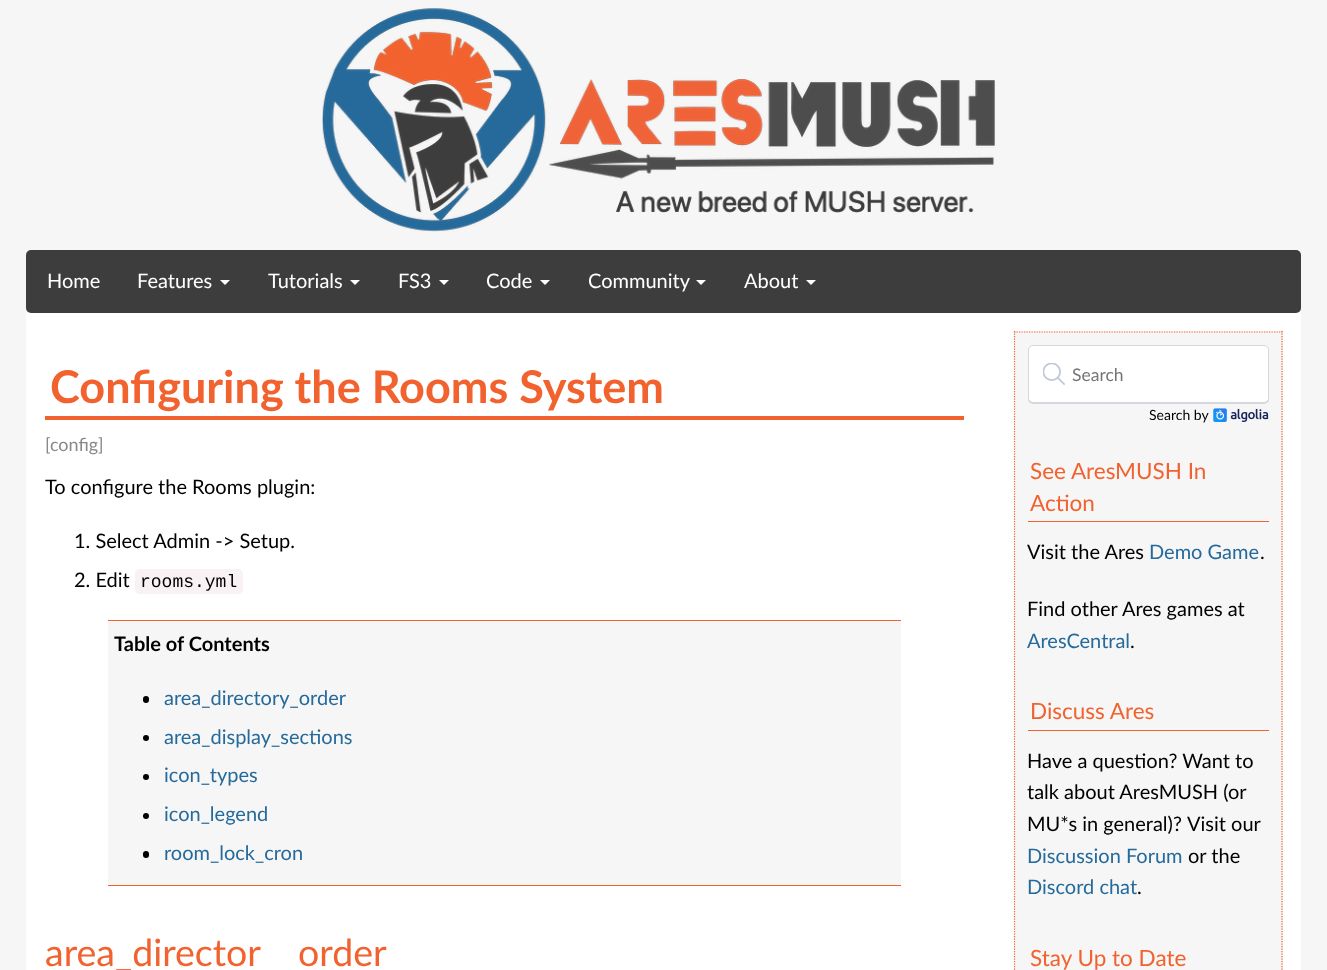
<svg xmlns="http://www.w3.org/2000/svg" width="1327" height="970">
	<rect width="100%" height="100%" fill="#F6F6F6" />
	<image x="322" y="8" width="673" height="224" href="assets/img1.png" />
	<rect x="26" y="250" width="1275" height="63" rx="5" fill="#3D3D3D" />
	<g font-family="Lato" font-size="20" fill="#FFFFFF">
		<text x="47" y="288">Home</text>
		<text x="137" y="288">Features</text>
	</g>
	<path d="M220 280H230L225 285Z" fill="#FFFFFF" />
	<text x="268" y="288" font-family="Lato" font-size="20" fill="#FFFFFF">Tutorials</text>
	<path d="M350 280H360L355 285Z" fill="#FFFFFF" />
	<text x="398" y="288" font-family="Lato" font-size="20" fill="#FFFFFF">FS3</text>
	<path d="M439 280H449L444 285Z" fill="#FFFFFF" />
	<text x="486" y="288" font-family="Lato" font-size="20" fill="#FFFFFF">Code</text>
	<path d="M540 280H550L545 285Z" fill="#FFFFFF" />
	<text x="588" y="288" font-family="Lato" font-size="20" fill="#FFFFFF">Community</text>
	<path d="M696 280H706L701 285Z" fill="#FFFFFF" />
	<text x="744" y="288" font-family="Lato" font-size="20" fill="#FFFFFF">About</text>
	<path d="M806 280H816L811 285Z" fill="#FFFFFF" />
	<rect x="26" y="313" width="1275" height="657" fill="#FFFFFF" />
	<rect x="45" y="416" width="919" height="4" fill="#F2622E" />
	<text x="50" y="403" font-family="Lato" font-size="45" font-weight="700" fill="#F2622E">Configuring the Rooms System</text>
	<text x="45" y="451" font-family="Lato" font-size="18" fill="#888888">[config]</text>
	<g font-family="Lato" font-size="20" fill="#000000">
		<text x="45" y="494">To configure the Rooms plugin:</text>
		<text x="74" y="548">1. Select Admin -&gt; Setup.</text>
		<text x="74" y="587">2. Edit</text>
	</g>
	<path d="M140 569H194V594H140C137 594 135 592 135 589V574C135 571 137 569 140 569Z" fill="#F9F2F4" />
	<rect x="194" y="569" width="11" height="25" fill="#F9F2F4" />
	<path d="M205 569H238C241 569 243 571 243 574V589C243 592 241 594 238 594H205Z" fill="#F9F2F4" />
	<text x="140" y="587" font-family="Liberation Mono" font-size="18" fill="#000000">rooms.yml</text>
	<rect x="108" y="621" width="793" height="264" fill="#F6F6F6" />
	<rect x="108" y="620" width="793" height="1" fill="#F2622E" />
	<rect x="108" y="885" width="793" height="1" fill="#F2622E" />
	<text x="114" y="651" font-family="Lato" font-size="20" font-weight="700" fill="#000000">Table of Contents</text>
	<rect x="143" y="696" width="6" height="7" rx="3" fill="#000000" />
	<text x="164" y="705" font-family="Lato" font-size="20" fill="#256A9B">area_directory_order</text>
	<circle cx="146" cy="738" r="3" fill="#000000" />
	<text x="164" y="744" font-family="Lato" font-size="20" fill="#256A9B">area_display_sections</text>
	<circle cx="146" cy="777" r="3" fill="#000000" />
	<text x="164" y="782" font-family="Lato" font-size="20" fill="#256A9B">icon_types</text>
	<circle cx="146" cy="816" r="3" fill="#000000" />
	<text x="164" y="821" font-family="Lato" font-size="20" fill="#256A9B">icon_legend</text>
	<rect x="143" y="851" width="6" height="7" rx="3" fill="#000000" />
	<text x="164" y="860" font-family="Lato" font-size="20" fill="#256A9B">room_lock_cron</text>
	<g font-family="Lato" font-size="37.5" fill="#F2622E">
		<text x="45" y="966">area_director</text>
		<text x="298" y="966">order</text>
	</g>
	<rect x="1014" y="331" width="269" height="639" fill="#F6F6F6" />
	<path d="M1014 332H1282.5" fill="none" stroke="#F2622E" stroke-width="1.2" stroke-dasharray="1.25 1.25" />
	<path d="M1282 331V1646" fill="none" stroke="#F2622E" stroke-width="1.2" stroke-dasharray="1.25 1.25" />
	<path d="M1014.5 331V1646" fill="none" stroke="#F2622E" stroke-width="1.2" stroke-dasharray="1.25 1.25" />
	<rect x="1028" y="346" width="241" height="58" rx="5" fill="#555F6E" fill-opacity="0.2" filter="blur(0.5px)" />
	<rect x="1028.5" y="345.5" width="240" height="57" rx="4.5" fill="#FFFFFF" stroke="#D4D8E3" />
	<image x="1043" y="363" width="22" height="22" href="assets/img2.png" />
	<text x="1072" y="381" font-family="Lato" font-size="17.5" fill="#757575">Search</text>
	<text x="1149" y="420" font-family="Lato" font-size="14" fill="#000000">Search by</text>
	<image x="1213" y="408" width="56" height="14" href="assets/img3.png" />
	<rect x="1028" y="521" width="241" height="1" fill="#F2622E" />
	<g font-family="Lato" font-size="22.5" fill="#F2622E">
		<text x="1030" y="479">See AresMUSH In</text>
		<text x="1030" y="511">Action</text>
	</g>
	<text x="1027" y="559" font-family="Lato" font-size="20" fill="#000000">Visit the Ares</text>
	<text x="1149" y="559" font-family="Lato" font-size="20" fill="#256A9B">Demo Game</text>
	<g font-family="Lato" font-size="20" fill="#000000">
		<text x="1260" y="559">.</text>
		<text x="1027" y="616">Find other Ares games at</text>
	</g>
	<text x="1027" y="648" font-family="Lato" font-size="20" fill="#256A9B">AresCentral</text>
	<text x="1130" y="648" font-family="Lato" font-size="20" fill="#000000">.</text>
	<rect x="1028" y="730" width="241" height="1" fill="#F2622E" />
	<text x="1030" y="719" font-family="Lato" font-size="22.5" fill="#F2622E">Discuss Ares</text>
	<g font-family="Lato" font-size="20" fill="#000000">
		<text x="1027" y="768">Have a question? Want to</text>
		<text x="1027" y="799">talk about AresMUSH (or</text>
		<text x="1027" y="831">MU*s in general)?</text>
		<text x="1187" y="831">Visit our</text>
	</g>
	<text x="1027" y="863" font-family="Lato" font-size="20" fill="#256A9B">Discussion Forum</text>
	<text x="1188" y="863" font-family="Lato" font-size="20" fill="#000000">or the</text>
	<text x="1027" y="894" font-family="Lato" font-size="20" fill="#256A9B">Discord chat</text>
	<text x="1137" y="894" font-family="Lato" font-size="20" fill="#000000">.</text>
	<text x="1030" y="966" font-family="Lato" font-size="22.5" fill="#F2622E">Stay Up to Date</text>
</svg>
